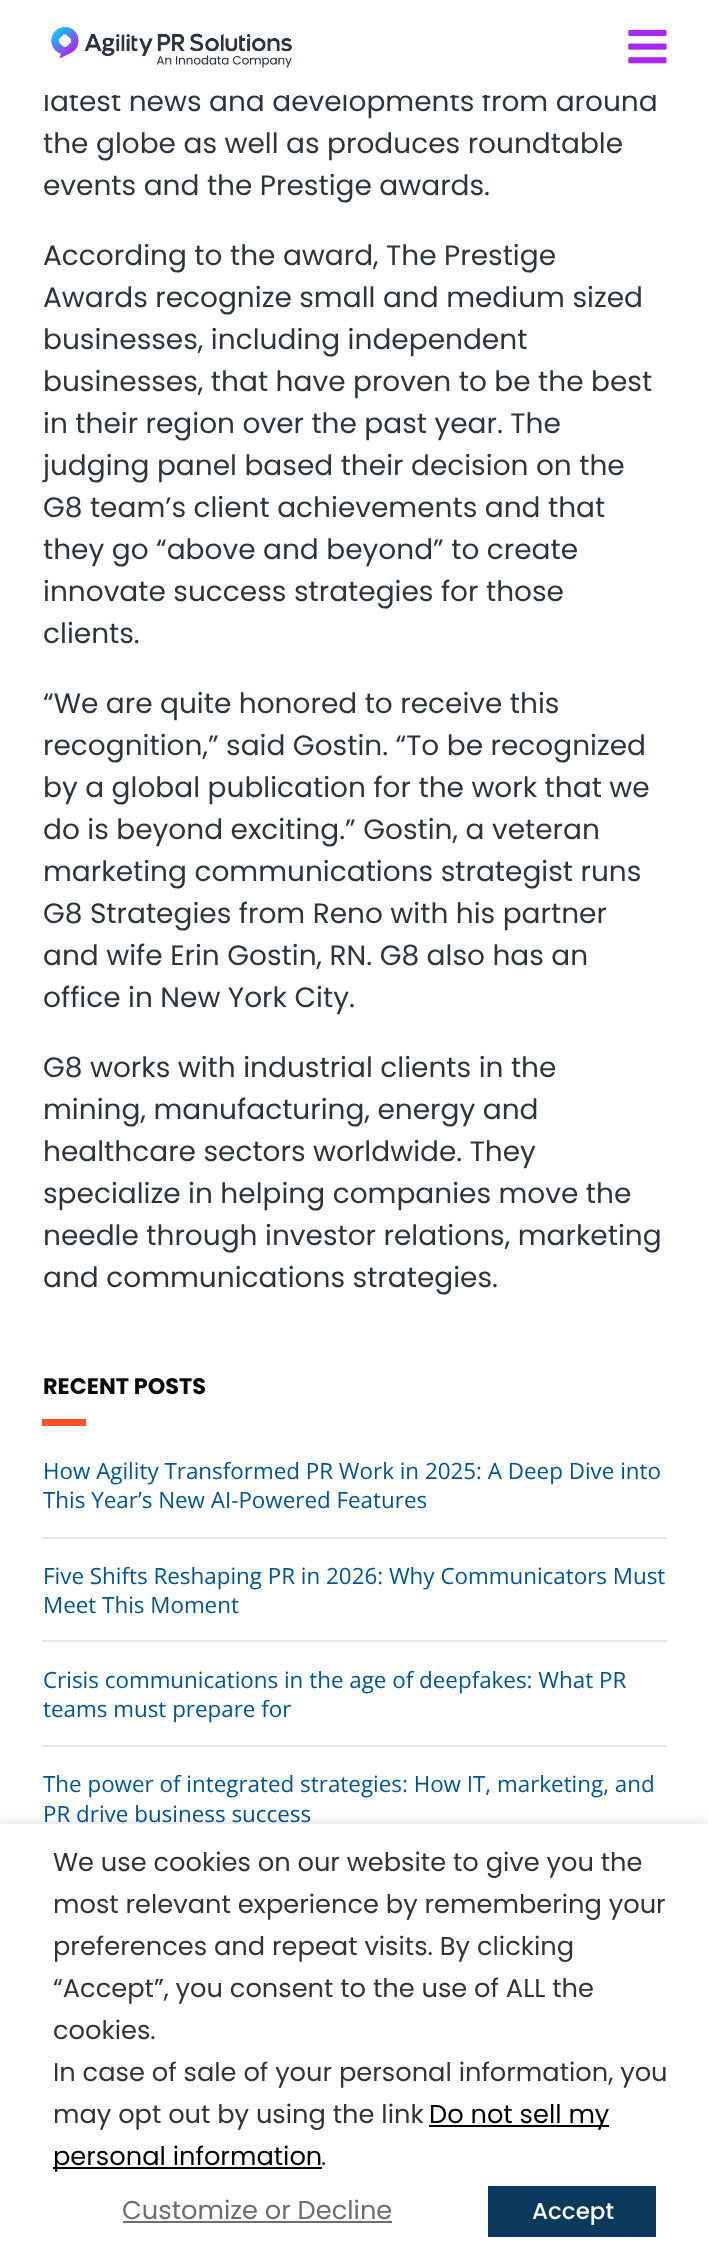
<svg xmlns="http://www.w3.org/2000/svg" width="708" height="2262">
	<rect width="100%" height="100%" fill="#FFFFFF" />
	<text x="43" y="111" font-family="Poppins" font-size="28" fill="#2C353E">latest news and developments from around</text>
	<rect x="44" y="89" width="612" height="6" fill="#FFFFFF" />
	<image x="51" y="27" width="241" height="41" href="assets/img1.png" />
	<image x="628" y="29" width="39" height="35" href="assets/img2.png" />
	<g font-family="Poppins" font-size="28" fill="#2C353E">
		<text x="43" y="153">the globe as well as produces roundtable</text>
		<text x="43" y="195">events and the Prestige awards.</text>
		<text x="43" y="265">According to the award, The Prestige</text>
		<text x="43" y="307">Awards recognize small and medium sized</text>
		<text x="43" y="349">businesses, including independent</text>
		<text x="43" y="391">businesses, that have proven to be the best</text>
		<text x="43" y="433">in their region over the past year. The</text>
		<text x="43" y="475">judging panel based their decision on the</text>
		<text x="43" y="517">G8 team’s client achievements and that</text>
		<text x="43" y="559">they go “above and beyond” to create</text>
		<text x="43" y="601">innovate success strategies for those</text>
		<text x="43" y="643">clients.</text>
		<text x="43" y="713">“We are quite honored to receive this</text>
		<text x="43" y="755">recognition,” said Gostin. “To be recognized</text>
		<text x="43" y="797">by a global publication for the work that we</text>
		<text x="43" y="839">do is beyond exciting.” Gostin, a veteran</text>
		<text x="43" y="881">marketing communications strategist runs</text>
		<text x="43" y="923">G8 Strategies from Reno with his partner</text>
		<text x="43" y="965">and wife Erin Gostin, RN. G8 also has an</text>
		<text x="43" y="1007">office in New York City.</text>
		<text x="43" y="1077">G8 works with industrial clients in the</text>
		<text x="43" y="1119">mining, manufacturing, energy and</text>
		<text x="43" y="1161">healthcare sectors worldwide. They</text>
		<text x="43" y="1203">specialize in helping companies move the</text>
		<text x="43" y="1245">needle through investor relations, marketing</text>
		<text x="43" y="1287">and communications strategies.</text>
	</g>
	<text x="43" y="1394" font-family="Poppins" font-size="22.4" font-weight="700" fill="#0A0A0A">RECENT POSTS</text>
	<rect x="42" y="1419" width="44" height="7" fill="#FF5126" />
	<rect x="42" y="1537" width="625" height="2" fill="#E5E5E5" />
	<g font-family="Open Sans" font-size="22.4" fill="#005494">
		<text x="43" y="1479">How Agility Transformed PR Work in 2025: A Deep Dive into</text>
		<text x="43" y="1508">This Year’s New AI-Powered Features</text>
	</g>
	<rect x="42" y="1640" width="625" height="2" fill="#E5E5E5" />
	<g font-family="Open Sans" font-size="22.4" fill="#005494">
		<text x="43" y="1584">Five Shifts Reshaping PR in 2026: Why Communicators Must</text>
		<text x="43" y="1613">Meet This Moment</text>
	</g>
	<rect x="42" y="1745" width="625" height="2" fill="#E5E5E5" />
	<g font-family="Open Sans" font-size="22.4" fill="#005494">
		<text x="43" y="1688">Crisis communications in the age of deepfakes: What PR</text>
		<text x="43" y="1717">teams must prepare for</text>
		<text x="43" y="1792">The power of integrated strategies: How IT, marketing, and</text>
		<text x="43" y="1822">PR drive business success</text>
	</g>
	<rect x="0" y="1832" width="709" height="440" fill="#000000" fill-opacity="0.5" filter="blur(9px)" />
	<rect x="0" y="1824" width="708" height="438" fill="#FFFFFF" />
	<g font-family="Poppins" font-size="25.7" fill="#333333">
		<text x="53" y="1871">We use cookies on our website to give you the</text>
		<text x="53" y="1913">most relevant experience by remembering your</text>
		<text x="53" y="1955">preferences and repeat visits. By clicking</text>
		<text x="53" y="1997">“Accept”, you consent to the use of ALL the</text>
		<text x="53" y="2039">cookies.</text>
		<text x="53" y="2081">In case of sale of your personal information, you</text>
		<text x="53" y="2123">may opt out by using the link</text>
	</g>
	<rect x="429" y="2125" width="180" height="2" fill="#000000" />
	<text x="429" y="2123" font-family="Poppins" font-size="25.7" fill="#000000">Do not sell my</text>
	<rect x="53" y="2167" width="269" height="2" fill="#000000" />
	<text x="53" y="2165" font-family="Poppins" font-size="25.7" fill="#000000">personal information</text>
	<text x="321" y="2165" font-family="Poppins" font-size="25.7" fill="#333333">.</text>
	<text x="122" y="2219" font-family="Poppins" font-size="25.7" fill="#6D6D6D">Customize or Decline</text>
	<rect x="123" y="2221" width="269" height="2" fill="#6D6D6D" />
	<rect x="488" y="2186" width="168" height="51" fill="#0A3A5B" />
	<text x="532" y="2219" font-family="Poppins" font-size="23" font-weight="500" fill="#FFFFFF">Accept</text>
</svg>
